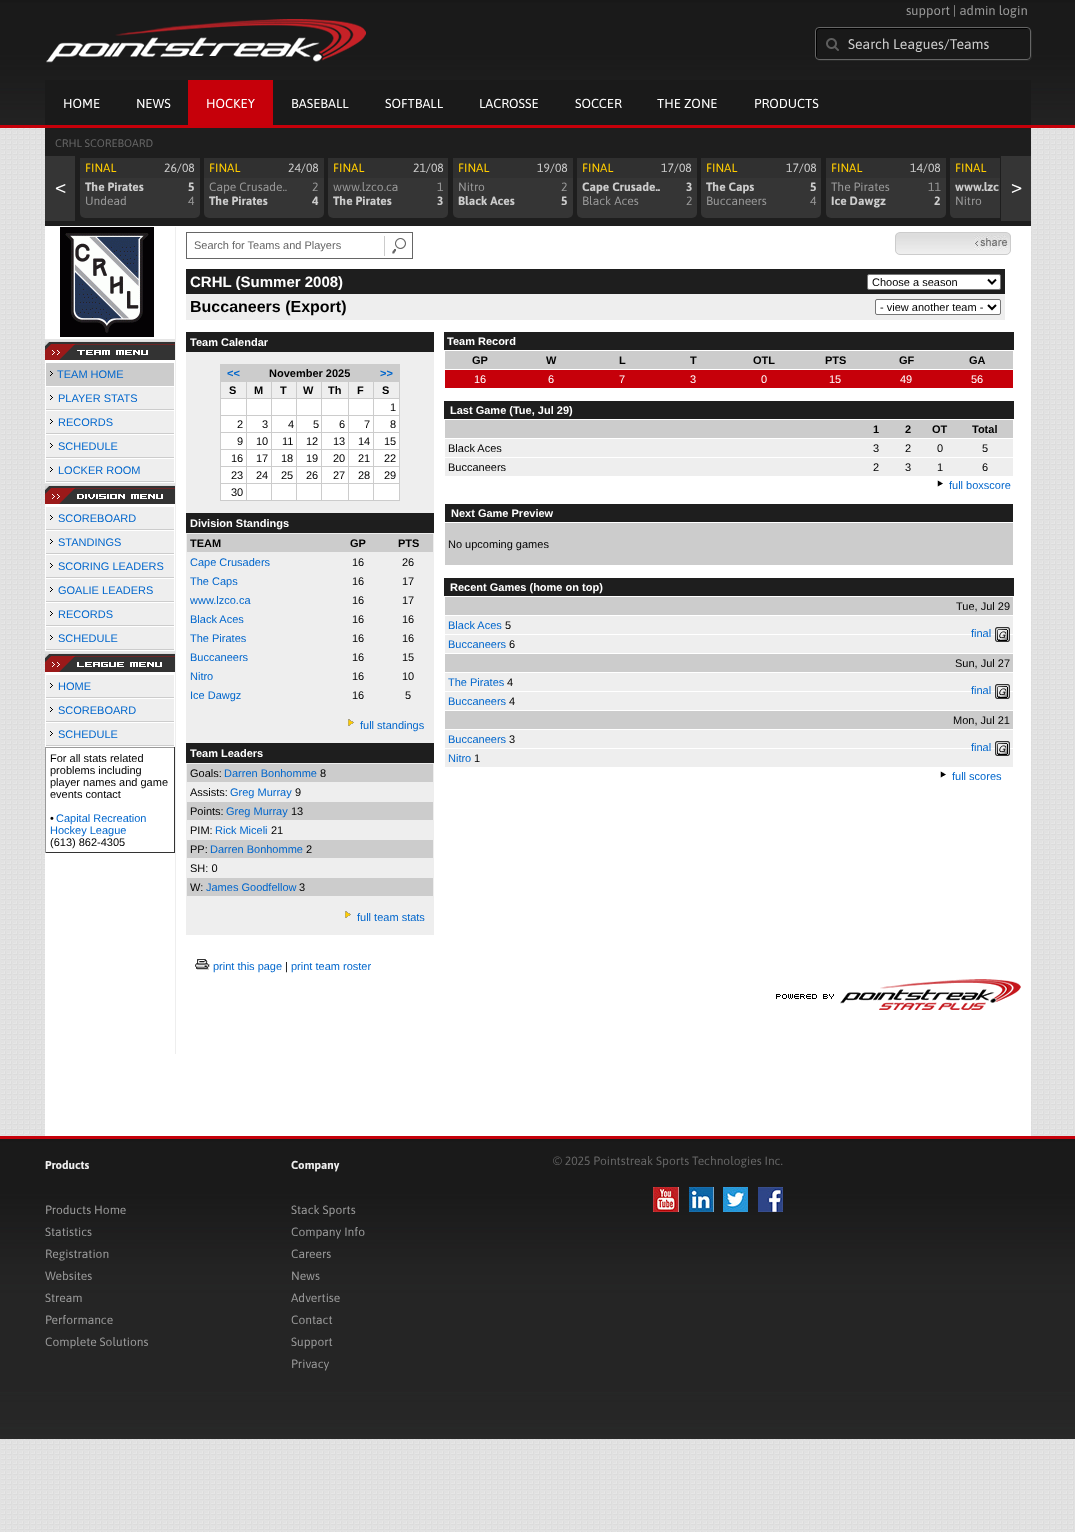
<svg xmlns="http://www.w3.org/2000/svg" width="1075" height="1532">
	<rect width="100%" height="100%" fill="#FFFFFF" />
	<image x="0" y="128" width="1075" height="1404" href="assets/img1.png" />
	<image x="0" y="0" width="1075" height="125" href="assets/img2.png" />
	<rect x="0" y="125" width="1075" height="3" fill="#C6000A" />
	<image x="46" y="19" width="320" height="44" href="assets/img3.png" />
	<text x="906" y="15" font-family="Asap" font-size="13" fill="#999999">support | admin login</text>
	<path d="M817 59C817 60 819 61 820 61H1028C1030 61 1032 59 1032 57V32C1032 31 1031 29 1030 29L1031 31V56C1031 58 1029 60 1027 60H819Z" fill="#272827" />
	<rect x="815" y="27" width="216" height="33" rx="4" fill="#191919" />
	<image x="826" y="38" width="13" height="13" href="assets/img4.png" />
	<path d="M820 29H1029L1027 28H819C815 28 816 33 816 35V44C816 46 815 57 817 58V36C817 34 816 29 820 29Z" fill="#000000" />
	<rect x="815.5" y="27.5" width="215" height="32" rx="3.5" fill="none" stroke="#666666" />
	<text x="848" y="49" font-family="Asap" font-size="14" fill="#CCCCCC">Search Leagues/Teams</text>
	<rect x="45" y="80" width="986" height="45" fill="#1A1A1A" />
	<g font-family="Asap" font-size="13" fill="#FFFFFF">
		<text x="63" y="108">HOME</text>
		<text x="136" y="108">NEWS</text>
	</g>
	<rect x="188" y="80" width="85" height="45" fill="#C6000A" />
	<g font-family="Asap" font-size="13" fill="#FFFFFF">
		<text x="206" y="108">HOCKEY</text>
		<text x="291" y="108">BASEBALL</text>
		<text x="385" y="108">SOFTBALL</text>
		<text x="479" y="108">LACROSSE</text>
		<text x="575" y="108">SOCCER</text>
		<text x="657" y="108">THE ZONE</text>
		<text x="754" y="108">PRODUCTS</text>
	</g>
	<rect x="45" y="128" width="986" height="98" fill="#1E1E1E" />
	<text x="55" y="147" font-family="Asap" font-size="11" fill="#666666">CRHL SCOREBOARD</text>
	<rect x="45" y="156" width="30" height="65" fill="#353535" />
	<text x="55" y="193" font-family="Asap" font-size="20" fill="#FFFFFF">&lt;</text>
	<rect x="80" y="158" width="120" height="60" rx="5" fill="#353535" />
	<rect x="80" y="158" width="120" height="20" fill="#303030" />
	<text x="85" y="172" font-family="Asap" font-size="12" fill="#FFCC00">FINAL</text>
	<text x="164" y="172" font-family="Asap" font-size="12" fill="#CCCCCC">26/08</text>
	<g font-family="Asap" font-size="12" font-weight="700" fill="#CCCCCC">
		<text x="85" y="191">The Pirates</text>
		<text x="188" y="191">5</text>
	</g>
	<g font-family="Asap" font-size="12" fill="#999999">
		<text x="85" y="205">Undead</text>
		<text x="188" y="205">4</text>
	</g>
	<rect x="204" y="158" width="120" height="60" rx="5" fill="#353535" />
	<rect x="204" y="158" width="120" height="20" fill="#303030" />
	<text x="209" y="172" font-family="Asap" font-size="12" fill="#FFCC00">FINAL</text>
	<text x="288" y="172" font-family="Asap" font-size="12" fill="#CCCCCC">24/08</text>
	<g font-family="Asap" font-size="12" fill="#999999">
		<text x="209" y="191">Cape Crusade..</text>
		<text x="312" y="191">2</text>
	</g>
	<g font-family="Asap" font-size="12" font-weight="700" fill="#CCCCCC">
		<text x="209" y="205">The Pirates</text>
		<text x="312" y="205">4</text>
	</g>
	<rect x="328" y="158" width="120" height="60" rx="5" fill="#353535" />
	<rect x="328" y="158" width="120" height="20" fill="#303030" />
	<text x="333" y="172" font-family="Asap" font-size="12" fill="#FFCC00">FINAL</text>
	<text x="413" y="172" font-family="Asap" font-size="12" fill="#CCCCCC">21/08</text>
	<g font-family="Asap" font-size="12" fill="#999999">
		<text x="333" y="191">www.lzco.ca</text>
		<text x="437" y="191">1</text>
	</g>
	<g font-family="Asap" font-size="12" font-weight="700" fill="#CCCCCC">
		<text x="333" y="205">The Pirates</text>
		<text x="437" y="205">3</text>
	</g>
	<rect x="453" y="158" width="120" height="60" rx="5" fill="#353535" />
	<rect x="453" y="158" width="120" height="20" fill="#303030" />
	<text x="458" y="172" font-family="Asap" font-size="12" fill="#FFCC00">FINAL</text>
	<text x="537" y="172" font-family="Asap" font-size="12" fill="#CCCCCC">19/08</text>
	<g font-family="Asap" font-size="12" fill="#999999">
		<text x="458" y="191">Nitro</text>
		<text x="561" y="191">2</text>
	</g>
	<g font-family="Asap" font-size="12" font-weight="700" fill="#CCCCCC">
		<text x="458" y="205">Black Aces</text>
		<text x="561" y="205">5</text>
	</g>
	<rect x="577" y="158" width="120" height="60" rx="5" fill="#353535" />
	<rect x="577" y="158" width="120" height="20" fill="#303030" />
	<text x="582" y="172" font-family="Asap" font-size="12" fill="#FFCC00">FINAL</text>
	<text x="661" y="172" font-family="Asap" font-size="12" fill="#CCCCCC">17/08</text>
	<g font-family="Asap" font-size="12" font-weight="700" fill="#CCCCCC">
		<text x="582" y="191">Cape Crusade..</text>
		<text x="686" y="191">3</text>
	</g>
	<g font-family="Asap" font-size="12" fill="#999999">
		<text x="582" y="205">Black Aces</text>
		<text x="686" y="205">2</text>
	</g>
	<rect x="701" y="158" width="120" height="60" rx="5" fill="#353535" />
	<rect x="701" y="158" width="120" height="20" fill="#303030" />
	<text x="706" y="172" font-family="Asap" font-size="12" fill="#FFCC00">FINAL</text>
	<text x="786" y="172" font-family="Asap" font-size="12" fill="#CCCCCC">17/08</text>
	<g font-family="Asap" font-size="12" font-weight="700" fill="#CCCCCC">
		<text x="706" y="191">The Caps</text>
		<text x="810" y="191">5</text>
	</g>
	<g font-family="Asap" font-size="12" fill="#999999">
		<text x="706" y="205">Buccaneers</text>
		<text x="810" y="205">4</text>
	</g>
	<rect x="826" y="158" width="120" height="60" rx="5" fill="#353535" />
	<rect x="826" y="158" width="120" height="20" fill="#303030" />
	<text x="831" y="172" font-family="Asap" font-size="12" fill="#FFCC00">FINAL</text>
	<text x="910" y="172" font-family="Asap" font-size="12" fill="#CCCCCC">14/08</text>
	<g font-family="Asap" font-size="12" fill="#999999">
		<text x="831" y="191">The Pirates</text>
		<text x="928" y="191">11</text>
	</g>
	<g font-family="Asap" font-size="12" font-weight="700" fill="#CCCCCC">
		<text x="831" y="205">Ice Dawgz</text>
		<text x="934" y="205">2</text>
	</g>
	<path d="M955 158H1000V218H955C952 218 950 216 950 213V163C950 160 952 158 955 158Z" fill="#353535" />
	<rect x="950" y="158" width="50" height="20" fill="#303030" />
	<text x="955" y="172" font-family="Asap" font-size="12" fill="#FFCC00">FINAL</text>
	<text x="955" y="191" font-family="Asap" font-size="12" font-weight="700" fill="#CCCCCC">www.lzc</text>
	<text x="955" y="205" font-family="Asap" font-size="12" fill="#999999">Nitro</text>
	<rect x="1001" y="156" width="30" height="65" fill="#353535" />
	<text x="1011" y="193" font-family="Asap" font-size="20" fill="#FFFFFF">&gt;</text>
	<rect x="45" y="226" width="986" height="910" fill="#FFFFFF" />
	<rect x="175" y="227" width="1" height="827" fill="#EEEEEE" />
	<image x="60" y="227" width="94" height="110" href="assets/img5.png" />
	<image x="45" y="339" width="130" height="21" href="assets/img6.png" />
	<rect x="46" y="363" width="128" height="23" fill="#CCCCCC" />
	<image x="50" y="371" width="3" height="5" href="assets/img7.png" />
	<text x="57" y="378" font-family="Liberation Sans" font-size="11" fill="#0066CC">TEAM HOME</text>
	<rect x="46" y="387" width="128" height="22" fill="#EEEEEE" />
	<rect x="46" y="409" width="128" height="1" fill="#CCCCCC" />
	<image x="50" y="395" width="3" height="5" href="assets/img8.png" />
	<text x="58" y="402" font-family="Liberation Sans" font-size="11" fill="#0066CC">PLAYER STATS</text>
	<rect x="46" y="411" width="128" height="22" fill="#EEEEEE" />
	<rect x="46" y="433" width="128" height="1" fill="#CCCCCC" />
	<image x="50" y="419" width="3" height="5" href="assets/img8.png" />
	<text x="58" y="426" font-family="Liberation Sans" font-size="11" fill="#0066CC">RECORDS</text>
	<rect x="46" y="435" width="128" height="22" fill="#EEEEEE" />
	<rect x="46" y="457" width="128" height="1" fill="#CCCCCC" />
	<image x="50" y="443" width="3" height="5" href="assets/img8.png" />
	<text x="58" y="450" font-family="Liberation Sans" font-size="11" fill="#0066CC">SCHEDULE</text>
	<rect x="46" y="459" width="128" height="22" fill="#EEEEEE" />
	<rect x="46" y="481" width="128" height="1" fill="#CCCCCC" />
	<image x="50" y="467" width="3" height="5" href="assets/img8.png" />
	<text x="58" y="474" font-family="Liberation Sans" font-size="11" fill="#0066CC">LOCKER ROOM</text>
	<image x="45" y="483" width="130" height="21" href="assets/img9.png" />
	<rect x="46" y="507" width="128" height="22" fill="#EEEEEE" />
	<rect x="46" y="529" width="128" height="1" fill="#CCCCCC" />
	<image x="50" y="515" width="3" height="5" href="assets/img8.png" />
	<text x="58" y="522" font-family="Liberation Sans" font-size="11" fill="#0066CC">SCOREBOARD</text>
	<rect x="46" y="531" width="128" height="22" fill="#EEEEEE" />
	<rect x="46" y="553" width="128" height="1" fill="#CCCCCC" />
	<image x="50" y="539" width="3" height="5" href="assets/img8.png" />
	<text x="58" y="546" font-family="Liberation Sans" font-size="11" fill="#0066CC">STANDINGS</text>
	<rect x="46" y="555" width="128" height="22" fill="#EEEEEE" />
	<rect x="46" y="577" width="128" height="1" fill="#CCCCCC" />
	<image x="50" y="563" width="3" height="5" href="assets/img8.png" />
	<text x="58" y="570" font-family="Liberation Sans" font-size="11" fill="#0066CC">SCORING LEADERS</text>
	<rect x="46" y="579" width="128" height="22" fill="#EEEEEE" />
	<rect x="46" y="601" width="128" height="1" fill="#CCCCCC" />
	<image x="50" y="587" width="3" height="5" href="assets/img8.png" />
	<text x="58" y="594" font-family="Liberation Sans" font-size="11" fill="#0066CC">GOALIE LEADERS</text>
	<rect x="46" y="603" width="128" height="22" fill="#EEEEEE" />
	<rect x="46" y="625" width="128" height="1" fill="#CCCCCC" />
	<image x="50" y="611" width="3" height="5" href="assets/img8.png" />
	<text x="58" y="618" font-family="Liberation Sans" font-size="11" fill="#0066CC">RECORDS</text>
	<rect x="46" y="627" width="128" height="22" fill="#EEEEEE" />
	<rect x="46" y="649" width="128" height="1" fill="#CCCCCC" />
	<image x="50" y="635" width="3" height="5" href="assets/img8.png" />
	<text x="58" y="642" font-family="Liberation Sans" font-size="11" fill="#0066CC">SCHEDULE</text>
	<image x="45" y="651" width="130" height="21" href="assets/img10.png" />
	<rect x="46" y="675" width="128" height="22" fill="#EEEEEE" />
	<rect x="46" y="697" width="128" height="1" fill="#CCCCCC" />
	<image x="50" y="683" width="3" height="5" href="assets/img8.png" />
	<text x="58" y="690" font-family="Liberation Sans" font-size="11" fill="#0066CC">HOME</text>
	<rect x="46" y="699" width="128" height="22" fill="#EEEEEE" />
	<rect x="46" y="721" width="128" height="1" fill="#CCCCCC" />
	<image x="50" y="707" width="3" height="5" href="assets/img8.png" />
	<text x="58" y="714" font-family="Liberation Sans" font-size="11" fill="#0066CC">SCOREBOARD</text>
	<rect x="46" y="723" width="128" height="22" fill="#EEEEEE" />
	<rect x="46" y="745" width="128" height="1" fill="#CCCCCC" />
	<image x="50" y="731" width="3" height="5" href="assets/img8.png" />
	<text x="58" y="738" font-family="Liberation Sans" font-size="11" fill="#0066CC">SCHEDULE</text>
	<rect x="45" y="747" width="130" height="1" fill="#999999" />
	<rect x="174" y="747" width="1" height="106" fill="#333333" />
	<rect x="45" y="852" width="130" height="1" fill="#333333" />
	<rect x="45" y="747" width="1" height="106" fill="#999999" />
	<g font-family="Liberation Sans" font-size="11" fill="#000000">
		<text x="50" y="762">For all stats related</text>
		<text x="50" y="774">problems including</text>
		<text x="50" y="786">player names and game</text>
		<text x="50" y="798">events contact</text>
		<text x="50" y="822">•</text>
	</g>
	<g font-family="Liberation Sans" font-size="11" fill="#0066CC">
		<text x="56" y="822">Capital Recreation</text>
		<text x="50" y="834">Hockey League</text>
	</g>
	<text x="50" y="846" font-family="Liberation Sans" font-size="11" fill="#000000">(613) 862-4305</text>
	<rect x="186.5" y="232.5" width="198" height="26" fill="none" stroke="#666666" />
	<text x="194" y="249" font-family="Liberation Sans" font-size="11" fill="#666666">Search for Teams and Players</text>
	<image x="384" y="232" width="29" height="27" href="assets/img11.png" />
	<image x="895" y="233" width="116" height="22" href="assets/img12.png" />
	<rect x="895.5" y="232.5" width="115" height="22" rx="4.5" fill="none" stroke="#CCCCCC" />
	<image x="974" y="235" width="34" height="15" href="assets/img13.png" />
	<rect x="186" y="269" width="819" height="25" fill="#1E1E1E" />
	<text x="190" y="287" font-family="Liberation Sans" font-size="15" font-weight="700" fill="#FFFFFF">CRHL (Summer 2008)</text>
	<rect x="867.5" y="274.5" width="133" height="15" rx="1.5" fill="#FFFFFF" stroke="#767676" />
	<path d="M988 279.5L992 283.5L996 279.5" fill="none" stroke="#000000" stroke-width="2" />
	<text x="872" y="286" font-family="Liberation Sans" font-size="11" fill="#000000">Choose a season</text>
	<rect x="186" y="294" width="819" height="26" fill="#EEEEEE" />
	<text x="190" y="312" font-family="Liberation Sans" font-size="16" font-weight="700" fill="#000000">Buccaneers (Export)</text>
	<rect x="875.5" y="299.5" width="125" height="15" rx="1.5" fill="#FFFFFF" stroke="#767676" />
	<path d="M988 305L992 309L996 305" fill="none" stroke="#000000" stroke-width="2" />
	<text x="880" y="311" font-family="Liberation Sans" font-size="11" fill="#000000">- view another team -</text>
	<rect x="186" y="352" width="248" height="583" fill="#EEEEEE" />
	<rect x="186" y="332" width="248" height="20" fill="#1E1E1E" />
	<text x="190" y="346" font-family="Liberation Sans" font-size="11" font-weight="700" fill="#FFFFFF">Team Calendar</text>
	<rect x="220" y="364" width="180" height="137" fill="#CCCCCC" />
	<text x="227" y="377" font-family="Liberation Sans" font-size="11" font-weight="700" fill="#0066CC">&lt;&lt;</text>
	<text x="269" y="377" font-family="Liberation Sans" font-size="11" font-weight="700" fill="#000000">November 2025</text>
	<text x="380" y="377" font-family="Liberation Sans" font-size="11" font-weight="700" fill="#0066CC">&gt;&gt;</text>
	<rect x="221" y="382" width="25" height="16" fill="#EEEEEE" />
	<text x="229" y="394" font-family="Liberation Sans" font-size="11" font-weight="700" fill="#000000">S</text>
	<rect x="247" y="382" width="24" height="16" fill="#EEEEEE" />
	<text x="254" y="394" font-family="Liberation Sans" font-size="11" font-weight="700" fill="#000000">M</text>
	<rect x="272" y="382" width="24" height="16" fill="#EEEEEE" />
	<text x="280" y="394" font-family="Liberation Sans" font-size="11" font-weight="700" fill="#000000">T</text>
	<rect x="297" y="382" width="24" height="16" fill="#EEEEEE" />
	<text x="303" y="394" font-family="Liberation Sans" font-size="11" font-weight="700" fill="#000000">W</text>
	<rect x="322" y="382" width="26" height="16" fill="#EEEEEE" />
	<text x="328" y="394" font-family="Liberation Sans" font-size="11" font-weight="700" fill="#000000">Th</text>
	<rect x="349" y="382" width="24" height="16" fill="#EEEEEE" />
	<text x="357" y="394" font-family="Liberation Sans" font-size="11" font-weight="700" fill="#000000">F</text>
	<rect x="374" y="382" width="25" height="16" fill="#EEEEEE" />
	<text x="382" y="394" font-family="Liberation Sans" font-size="11" font-weight="700" fill="#000000">S</text>
	<rect x="221" y="399" width="25" height="16" fill="#FFFFFF" />
	<rect x="247" y="399" width="24" height="16" fill="#FFFFFF" />
	<rect x="272" y="399" width="24" height="16" fill="#FFFFFF" />
	<rect x="297" y="399" width="24" height="16" fill="#FFFFFF" />
	<rect x="322" y="399" width="26" height="16" fill="#FFFFFF" />
	<rect x="349" y="399" width="24" height="16" fill="#FFFFFF" />
	<rect x="374" y="399" width="25" height="16" fill="#FFFFFF" />
	<text x="390" y="411" font-family="Liberation Sans" font-size="11" fill="#000000">1</text>
	<rect x="221" y="416" width="25" height="16" fill="#FFFFFF" />
	<text x="237" y="428" font-family="Liberation Sans" font-size="11" fill="#000000">2</text>
	<rect x="247" y="416" width="24" height="16" fill="#FFFFFF" />
	<text x="262" y="428" font-family="Liberation Sans" font-size="11" fill="#000000">3</text>
	<rect x="272" y="416" width="24" height="16" fill="#FFFFFF" />
	<text x="288" y="428" font-family="Liberation Sans" font-size="11" fill="#000000">4</text>
	<rect x="297" y="416" width="24" height="16" fill="#FFFFFF" />
	<text x="313" y="428" font-family="Liberation Sans" font-size="11" fill="#000000">5</text>
	<rect x="322" y="416" width="26" height="16" fill="#FFFFFF" />
	<text x="339" y="428" font-family="Liberation Sans" font-size="11" fill="#000000">6</text>
	<rect x="349" y="416" width="24" height="16" fill="#FFFFFF" />
	<text x="364" y="428" font-family="Liberation Sans" font-size="11" fill="#000000">7</text>
	<rect x="374" y="416" width="25" height="16" fill="#FFFFFF" />
	<text x="390" y="428" font-family="Liberation Sans" font-size="11" fill="#000000">8</text>
	<rect x="221" y="433" width="25" height="16" fill="#FFFFFF" />
	<text x="237" y="445" font-family="Liberation Sans" font-size="11" fill="#000000">9</text>
	<rect x="247" y="433" width="24" height="16" fill="#FFFFFF" />
	<text x="256" y="445" font-family="Liberation Sans" font-size="11" fill="#000000">10</text>
	<rect x="272" y="433" width="24" height="16" fill="#FFFFFF" />
	<text x="282" y="445" font-family="Liberation Sans" font-size="11" fill="#000000">11</text>
	<rect x="297" y="433" width="24" height="16" fill="#FFFFFF" />
	<text x="306" y="445" font-family="Liberation Sans" font-size="11" fill="#000000">12</text>
	<rect x="322" y="433" width="26" height="16" fill="#FFFFFF" />
	<text x="333" y="445" font-family="Liberation Sans" font-size="11" fill="#000000">13</text>
	<rect x="349" y="433" width="24" height="16" fill="#FFFFFF" />
	<text x="358" y="445" font-family="Liberation Sans" font-size="11" fill="#000000">14</text>
	<rect x="374" y="433" width="25" height="16" fill="#FFFFFF" />
	<text x="384" y="445" font-family="Liberation Sans" font-size="11" fill="#000000">15</text>
	<rect x="221" y="450" width="25" height="16" fill="#FFFFFF" />
	<text x="231" y="462" font-family="Liberation Sans" font-size="11" fill="#000000">16</text>
	<rect x="247" y="450" width="24" height="16" fill="#FFFFFF" />
	<text x="256" y="462" font-family="Liberation Sans" font-size="11" fill="#000000">17</text>
	<rect x="272" y="450" width="24" height="16" fill="#FFFFFF" />
	<text x="281" y="462" font-family="Liberation Sans" font-size="11" fill="#000000">18</text>
	<rect x="297" y="450" width="24" height="16" fill="#FFFFFF" />
	<text x="306" y="462" font-family="Liberation Sans" font-size="11" fill="#000000">19</text>
	<rect x="322" y="450" width="26" height="16" fill="#FFFFFF" />
	<text x="333" y="462" font-family="Liberation Sans" font-size="11" fill="#000000">20</text>
	<rect x="349" y="450" width="24" height="16" fill="#FFFFFF" />
	<text x="358" y="462" font-family="Liberation Sans" font-size="11" fill="#000000">21</text>
	<rect x="374" y="450" width="25" height="16" fill="#FFFFFF" />
	<text x="384" y="462" font-family="Liberation Sans" font-size="11" fill="#000000">22</text>
	<rect x="221" y="467" width="25" height="16" fill="#FFFFFF" />
	<text x="231" y="479" font-family="Liberation Sans" font-size="11" fill="#000000">23</text>
	<rect x="247" y="467" width="24" height="16" fill="#FFFFFF" />
	<text x="256" y="479" font-family="Liberation Sans" font-size="11" fill="#000000">24</text>
	<rect x="272" y="467" width="24" height="16" fill="#FFFFFF" />
	<text x="281" y="479" font-family="Liberation Sans" font-size="11" fill="#000000">25</text>
	<rect x="297" y="467" width="24" height="16" fill="#FFFFFF" />
	<text x="306" y="479" font-family="Liberation Sans" font-size="11" fill="#000000">26</text>
	<rect x="322" y="467" width="26" height="16" fill="#FFFFFF" />
	<text x="333" y="479" font-family="Liberation Sans" font-size="11" fill="#000000">27</text>
	<rect x="349" y="467" width="24" height="16" fill="#FFFFFF" />
	<text x="358" y="479" font-family="Liberation Sans" font-size="11" fill="#000000">28</text>
	<rect x="374" y="467" width="25" height="16" fill="#FFFFFF" />
	<text x="384" y="479" font-family="Liberation Sans" font-size="11" fill="#000000">29</text>
	<rect x="221" y="484" width="25" height="16" fill="#FFFFFF" />
	<text x="231" y="496" font-family="Liberation Sans" font-size="11" fill="#000000">30</text>
	<rect x="247" y="484" width="24" height="16" fill="#FFFFFF" />
	<rect x="272" y="484" width="24" height="16" fill="#FFFFFF" />
	<rect x="297" y="484" width="24" height="16" fill="#FFFFFF" />
	<rect x="322" y="484" width="26" height="16" fill="#FFFFFF" />
	<rect x="349" y="484" width="24" height="16" fill="#FFFFFF" />
	<rect x="374" y="484" width="25" height="16" fill="#FFFFFF" />
	<rect x="186" y="513" width="248" height="20" fill="#1E1E1E" />
	<text x="190" y="527" font-family="Liberation Sans" font-size="11" font-weight="700" fill="#FFFFFF">Division Standings</text>
	<rect x="187" y="534" width="246" height="18" fill="#CCCCCC" />
	<g font-family="Liberation Sans" font-size="11" font-weight="700" fill="#000000">
		<text x="190" y="547">TEAM</text>
		<text x="350" y="547">GP</text>
		<text x="398" y="547">PTS</text>
	</g>
	<text x="190" y="566" font-family="Liberation Sans" font-size="11" fill="#0066CC">Cape Crusaders</text>
	<g font-family="Liberation Sans" font-size="11" fill="#000000">
		<text x="352" y="566">16</text>
		<text x="402" y="566">26</text>
	</g>
	<text x="190" y="585" font-family="Liberation Sans" font-size="11" fill="#0066CC">The Caps</text>
	<g font-family="Liberation Sans" font-size="11" fill="#000000">
		<text x="352" y="585">16</text>
		<text x="402" y="585">17</text>
	</g>
	<text x="190" y="604" font-family="Liberation Sans" font-size="11" fill="#0066CC">www.lzco.ca</text>
	<g font-family="Liberation Sans" font-size="11" fill="#000000">
		<text x="352" y="604">16</text>
		<text x="402" y="604">17</text>
	</g>
	<text x="190" y="623" font-family="Liberation Sans" font-size="11" fill="#0066CC">Black Aces</text>
	<g font-family="Liberation Sans" font-size="11" fill="#000000">
		<text x="352" y="623">16</text>
		<text x="402" y="623">16</text>
	</g>
	<text x="190" y="642" font-family="Liberation Sans" font-size="11" fill="#0066CC">The Pirates</text>
	<g font-family="Liberation Sans" font-size="11" fill="#000000">
		<text x="352" y="642">16</text>
		<text x="402" y="642">16</text>
	</g>
	<text x="190" y="661" font-family="Liberation Sans" font-size="11" fill="#0066CC">Buccaneers</text>
	<g font-family="Liberation Sans" font-size="11" fill="#000000">
		<text x="352" y="661">16</text>
		<text x="402" y="661">15</text>
	</g>
	<text x="190" y="680" font-family="Liberation Sans" font-size="11" fill="#0066CC">Nitro</text>
	<g font-family="Liberation Sans" font-size="11" fill="#000000">
		<text x="352" y="680">16</text>
		<text x="402" y="680">10</text>
	</g>
	<text x="190" y="699" font-family="Liberation Sans" font-size="11" fill="#0066CC">Ice Dawgz</text>
	<g font-family="Liberation Sans" font-size="11" fill="#000000">
		<text x="352" y="699">16</text>
		<text x="405" y="699">5</text>
	</g>
	<image x="348" y="719" width="6" height="7" href="assets/img14.png" />
	<text x="360" y="729" font-family="Liberation Sans" font-size="11" fill="#0066CC">full standings</text>
	<rect x="186" y="743" width="248" height="20" fill="#1E1E1E" />
	<text x="190" y="757" font-family="Liberation Sans" font-size="11" font-weight="700" fill="#FFFFFF">Team Leaders</text>
	<rect x="187" y="764" width="246" height="18" fill="#CCCCCC" />
	<text x="190" y="777" font-family="Liberation Sans" font-size="11" fill="#000000">Goals:</text>
	<text x="224" y="777" font-family="Liberation Sans" font-size="11" fill="#0066CC">Darren Bonhomme</text>
	<g font-family="Liberation Sans" font-size="11" fill="#000000">
		<text x="320" y="777">8</text>
		<text x="190" y="796">Assists:</text>
	</g>
	<text x="230" y="796" font-family="Liberation Sans" font-size="11" fill="#0066CC">Greg Murray</text>
	<text x="295" y="796" font-family="Liberation Sans" font-size="11" fill="#000000">9</text>
	<rect x="187" y="802" width="246" height="18" fill="#CCCCCC" />
	<text x="190" y="815" font-family="Liberation Sans" font-size="11" fill="#000000">Points:</text>
	<text x="226" y="815" font-family="Liberation Sans" font-size="11" fill="#0066CC">Greg Murray</text>
	<g font-family="Liberation Sans" font-size="11" fill="#000000">
		<text x="291" y="815">13</text>
		<text x="190" y="834">PIM:</text>
	</g>
	<text x="215" y="834" font-family="Liberation Sans" font-size="11" fill="#0066CC">Rick Miceli</text>
	<text x="271" y="834" font-family="Liberation Sans" font-size="11" fill="#000000">21</text>
	<rect x="187" y="840" width="246" height="18" fill="#CCCCCC" />
	<text x="190" y="853" font-family="Liberation Sans" font-size="11" fill="#000000">PP:</text>
	<text x="210" y="853" font-family="Liberation Sans" font-size="11" fill="#0066CC">Darren Bonhomme</text>
	<g font-family="Liberation Sans" font-size="11" fill="#000000">
		<text x="306" y="853">2</text>
		<text x="190" y="872">SH: 0</text>
	</g>
	<rect x="187" y="878" width="246" height="18" fill="#CCCCCC" />
	<text x="190" y="891" font-family="Liberation Sans" font-size="11" fill="#000000">W:</text>
	<text x="206" y="891" font-family="Liberation Sans" font-size="11" fill="#0066CC">James Goodfellow</text>
	<text x="299" y="891" font-family="Liberation Sans" font-size="11" fill="#000000">3</text>
	<image x="345" y="911" width="6" height="7" href="assets/img14.png" />
	<text x="357" y="921" font-family="Liberation Sans" font-size="11" fill="#0066CC">full team stats</text>
	<rect x="444" y="332" width="570" height="18" fill="#1E1E1E" />
	<text x="447" y="345" font-family="Liberation Sans" font-size="11" font-weight="700" fill="#FFFFFF">Team Record</text>
	<rect x="445" y="351" width="568" height="18" fill="#CCCCCC" />
	<g font-family="Liberation Sans" font-size="11" font-weight="700" fill="#000000">
		<text x="472" y="364">GP</text>
		<text x="546" y="364">W</text>
		<text x="619" y="364">L</text>
		<text x="690" y="364">T</text>
		<text x="753" y="364">OTL</text>
		<text x="825" y="364">PTS</text>
		<text x="899" y="364">GF</text>
		<text x="969" y="364">GA</text>
	</g>
	<rect x="445" y="370" width="568" height="18" fill="#C6000A" />
	<g font-family="Liberation Sans" font-size="11" fill="#FFFFFF">
		<text x="474" y="383">16</text>
		<text x="548" y="383">6</text>
		<text x="619" y="383">7</text>
		<text x="690" y="383">3</text>
		<text x="761" y="383">0</text>
		<text x="829" y="383">15</text>
		<text x="900" y="383">49</text>
		<text x="971" y="383">56</text>
	</g>
	<rect x="444" y="401" width="570" height="18" fill="#1E1E1E" />
	<text x="450" y="414" font-family="Liberation Sans" font-size="11" font-weight="700" fill="#FFFFFF">Last Game (Tue, Jul 29)</text>
	<rect x="445" y="420" width="568" height="18" fill="#CCCCCC" />
	<g font-family="Liberation Sans" font-size="11" font-weight="700" fill="#000000">
		<text x="873" y="433">1</text>
		<text x="905" y="433">2</text>
		<text x="932" y="433">OT</text>
		<text x="972" y="433">Total</text>
	</g>
	<rect x="445" y="439" width="568" height="18" fill="#EEEEEE" />
	<g font-family="Liberation Sans" font-size="11" fill="#000000">
		<text x="448" y="452">Black Aces</text>
		<text x="873" y="452">3</text>
		<text x="905" y="452">2</text>
		<text x="937" y="452">0</text>
		<text x="982" y="452">5</text>
	</g>
	<rect x="445" y="458" width="568" height="18" fill="#EEEEEE" />
	<g font-family="Liberation Sans" font-size="11" fill="#000000">
		<text x="448" y="471">Buccaneers</text>
		<text x="873" y="471">2</text>
		<text x="905" y="471">3</text>
		<text x="937" y="471">1</text>
		<text x="982" y="471">6</text>
	</g>
	<image x="937" y="480" width="6" height="7" href="assets/img15.png" />
	<text x="949" y="489" font-family="Liberation Sans" font-size="11" fill="#0066CC">full boxscore</text>
	<rect x="445" y="504" width="568" height="18" fill="#1E1E1E" />
	<text x="451" y="517" font-family="Liberation Sans" font-size="11" font-weight="700" fill="#FFFFFF">Next Game Preview</text>
	<rect x="445" y="523" width="568" height="42" fill="#CCCCCC" />
	<text x="448" y="548" font-family="Liberation Sans" font-size="11" fill="#000000">No upcoming games</text>
	<rect x="444" y="578" width="570" height="18" fill="#1E1E1E" />
	<text x="450" y="591" font-family="Liberation Sans" font-size="11" font-weight="700" fill="#FFFFFF">Recent Games (home on top)</text>
	<rect x="445" y="597" width="568" height="18" fill="#CCCCCC" />
	<text x="956" y="610" font-family="Liberation Sans" font-size="11" fill="#000000">Tue, Jul 29</text>
	<rect x="445" y="616" width="568" height="18" fill="#EEEEEE" />
	<text x="448" y="629" font-family="Liberation Sans" font-size="11" fill="#0066CC">Black Aces</text>
	<text x="505" y="629" font-family="Liberation Sans" font-size="11" fill="#000000">5</text>
	<rect x="445" y="635" width="568" height="18" fill="#EEEEEE" />
	<text x="971" y="637" font-family="Liberation Sans" font-size="11" fill="#0066CC">final</text>
	<image x="995" y="627" width="15" height="15" href="assets/img16.png" />
	<text x="448" y="648" font-family="Liberation Sans" font-size="11" fill="#0066CC">Buccaneers</text>
	<text x="509" y="648" font-family="Liberation Sans" font-size="11" fill="#000000">6</text>
	<rect x="445" y="654" width="568" height="18" fill="#CCCCCC" />
	<text x="955" y="667" font-family="Liberation Sans" font-size="11" fill="#000000">Sun, Jul 27</text>
	<rect x="445" y="673" width="568" height="18" fill="#EEEEEE" />
	<text x="448" y="686" font-family="Liberation Sans" font-size="11" fill="#0066CC">The Pirates</text>
	<text x="507" y="686" font-family="Liberation Sans" font-size="11" fill="#000000">4</text>
	<rect x="445" y="692" width="568" height="18" fill="#EEEEEE" />
	<text x="971" y="694" font-family="Liberation Sans" font-size="11" fill="#0066CC">final</text>
	<image x="995" y="684" width="15" height="15" href="assets/img16.png" />
	<text x="448" y="705" font-family="Liberation Sans" font-size="11" fill="#0066CC">Buccaneers</text>
	<text x="509" y="705" font-family="Liberation Sans" font-size="11" fill="#000000">4</text>
	<rect x="445" y="711" width="568" height="18" fill="#CCCCCC" />
	<text x="953" y="724" font-family="Liberation Sans" font-size="11" fill="#000000">Mon, Jul 21</text>
	<rect x="445" y="730" width="568" height="18" fill="#EEEEEE" />
	<text x="448" y="743" font-family="Liberation Sans" font-size="11" fill="#0066CC">Buccaneers</text>
	<text x="509" y="743" font-family="Liberation Sans" font-size="11" fill="#000000">3</text>
	<rect x="445" y="749" width="568" height="18" fill="#EEEEEE" />
	<text x="971" y="751" font-family="Liberation Sans" font-size="11" fill="#0066CC">final</text>
	<image x="995" y="741" width="15" height="15" href="assets/img16.png" />
	<text x="448" y="762" font-family="Liberation Sans" font-size="11" fill="#0066CC">Nitro</text>
	<text x="474" y="762" font-family="Liberation Sans" font-size="11" fill="#000000">1</text>
	<image x="940" y="771" width="6" height="7" href="assets/img15.png" />
	<text x="952" y="780" font-family="Liberation Sans" font-size="11" fill="#0066CC">full scores</text>
	<image x="195" y="959" width="15" height="11" href="assets/img17.png" />
	<text x="213" y="970" font-family="Liberation Sans" font-size="11" fill="#0066CC">print this page</text>
	<text x="285" y="970" font-family="Liberation Sans" font-size="11" fill="#000000">|</text>
	<text x="291" y="970" font-family="Liberation Sans" font-size="11" fill="#0066CC">print team roster</text>
	<image x="776" y="979" width="245" height="31" href="assets/img18.png" />
	<image x="0" y="1139" width="1075" height="300" href="assets/img19.png" />
	<rect x="0" y="1136" width="1075" height="3" fill="#C6000A" />
	<text x="45" y="1169" font-family="Asap" font-size="11.5" font-weight="700" fill="#EEEEEE">Products</text>
	<g font-family="Asap" font-size="12" fill="#999999">
		<text x="45" y="1214">Products Home</text>
		<text x="45" y="1236">Statistics</text>
		<text x="45" y="1258">Registration</text>
		<text x="45" y="1280">Websites</text>
		<text x="45" y="1302">Stream</text>
		<text x="45" y="1324">Performance</text>
		<text x="45" y="1346">Complete Solutions</text>
	</g>
	<text x="291" y="1169" font-family="Asap" font-size="11.5" font-weight="700" fill="#EEEEEE">Company</text>
	<g font-family="Asap" font-size="12" fill="#999999">
		<text x="291" y="1214">Stack Sports</text>
		<text x="291" y="1236">Company Info</text>
		<text x="291" y="1258">Careers</text>
		<text x="291" y="1280">News</text>
		<text x="291" y="1302">Advertise</text>
		<text x="291" y="1324">Contact</text>
		<text x="291" y="1346">Support</text>
		<text x="291" y="1368">Privacy</text>
	</g>
	<text x="553" y="1165" font-family="Asap" font-size="12" fill="#666666">© 2025 Pointstreak Sports Technologies Inc.</text>
	<image x="653" y="1187" width="26" height="25" href="assets/img20.png" />
	<image x="689" y="1187" width="25" height="25" href="assets/img21.png" />
	<image x="723" y="1187" width="25" height="25" href="assets/img22.png" />
	<image x="758" y="1187" width="25" height="25" href="assets/img23.png" />
</svg>
